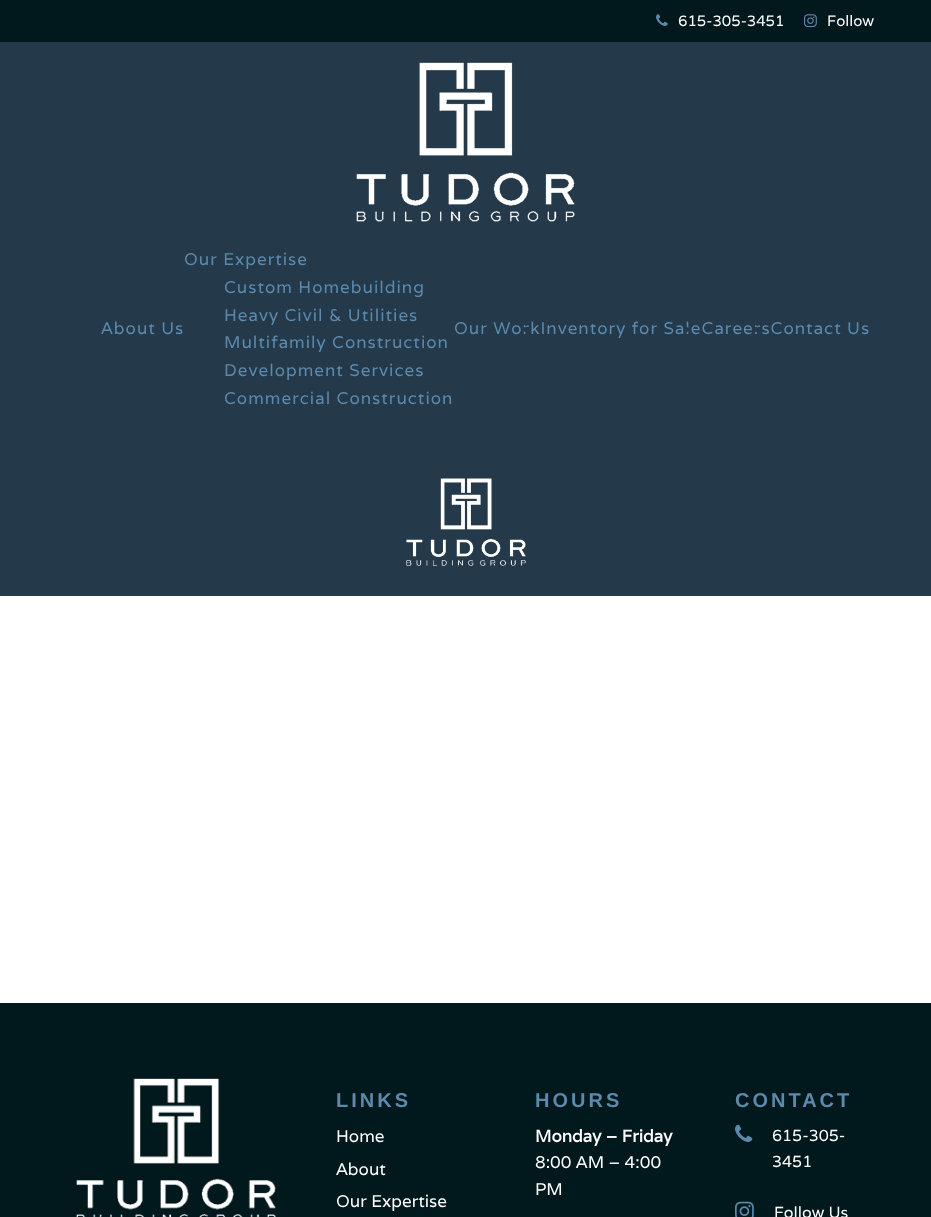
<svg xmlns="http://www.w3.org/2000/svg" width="931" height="1217">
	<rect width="100%" height="100%" fill="#FFFFFF" />
	<rect x="0" y="0" width="931" height="42" fill="#01181C" />
	<image x="656" y="14" width="12" height="12" href="assets/img1.png" />
	<text x="678" y="26" font-family="Varela" font-size="15" fill="#FFFFFF">615-305-3451</text>
	<image x="804" y="14" width="13" height="14" href="assets/img2.png" />
	<text x="827" y="26" font-family="Varela" font-size="15" fill="#FFFFFF">Follow</text>
	<rect x="0" y="42" width="931" height="554" fill="#243949" />
	<image x="406" y="478" width="120" height="88" href="assets/img3.png" />
	<image x="356" y="62" width="219" height="160" href="assets/img4.png" />
	<g font-family="Varela" font-size="17" letter-spacing="1" fill="#5B8AAE">
		<text x="101" y="334">About Us</text>
		<text x="184" y="265">Our Expertise</text>
		<text x="224" y="293">Custom Homebuilding</text>
		<text x="224" y="321">Heavy Civil &amp; Utilities</text>
		<text x="224" y="348">Multifamily Construction</text>
		<text x="224" y="376">Development Services</text>
		<text x="224" y="404">Commercial Construction</text>
		<text x="454" y="334">Our WorkInventory for SaleCareersContact Us</text>
	</g>
	<circle cx="525.5" cy="329.5" r="2.5" fill="#243949" />
	<circle cx="686.5" cy="329.5" r="2.5" fill="#243949" />
	<circle cx="755.5" cy="329.5" r="2.5" fill="#243949" />
	<rect x="0" y="1003" width="931" height="214" fill="#01181C" />
	<image x="76" y="1078" width="200" height="139" href="assets/img5.png" />
	<text x="336" y="1107" font-family="Liberation Sans" font-size="20" font-weight="700" letter-spacing="3" fill="#5B8AAE">LINKS</text>
	<g font-family="Varela" font-size="17" fill="#FFFFFF">
		<text x="336" y="1142">Home</text>
		<text x="336" y="1175">About</text>
		<text x="336" y="1207">Our Expertise</text>
	</g>
	<text x="535" y="1107" font-family="Liberation Sans" font-size="20" font-weight="700" letter-spacing="3" fill="#5B8AAE">HOURS</text>
	<text x="535" y="1142" font-family="Varela" font-size="17" font-weight="700" fill="#FFFFFF">Monday – Friday</text>
	<g font-family="Varela" font-size="17" fill="#FFFFFF">
		<text x="535" y="1168">8:00 AM – 4:00</text>
		<text x="535" y="1195">PM</text>
	</g>
	<text x="735" y="1107" font-family="Liberation Sans" font-size="20" font-weight="700" letter-spacing="3" fill="#5B8AAE">CONTACT</text>
	<image x="735" y="1124" width="18" height="18" href="assets/img6.png" />
	<g font-family="Varela" font-size="16" fill="#FFFFFF">
		<text x="772" y="1141">615-305-</text>
		<text x="772" y="1167">3451</text>
	</g>
	<image x="735" y="1201" width="19" height="16" href="assets/img7.png" />
	<text x="774" y="1218" font-family="Varela" font-size="16" fill="#FFFFFF">Follow Us</text>
</svg>
